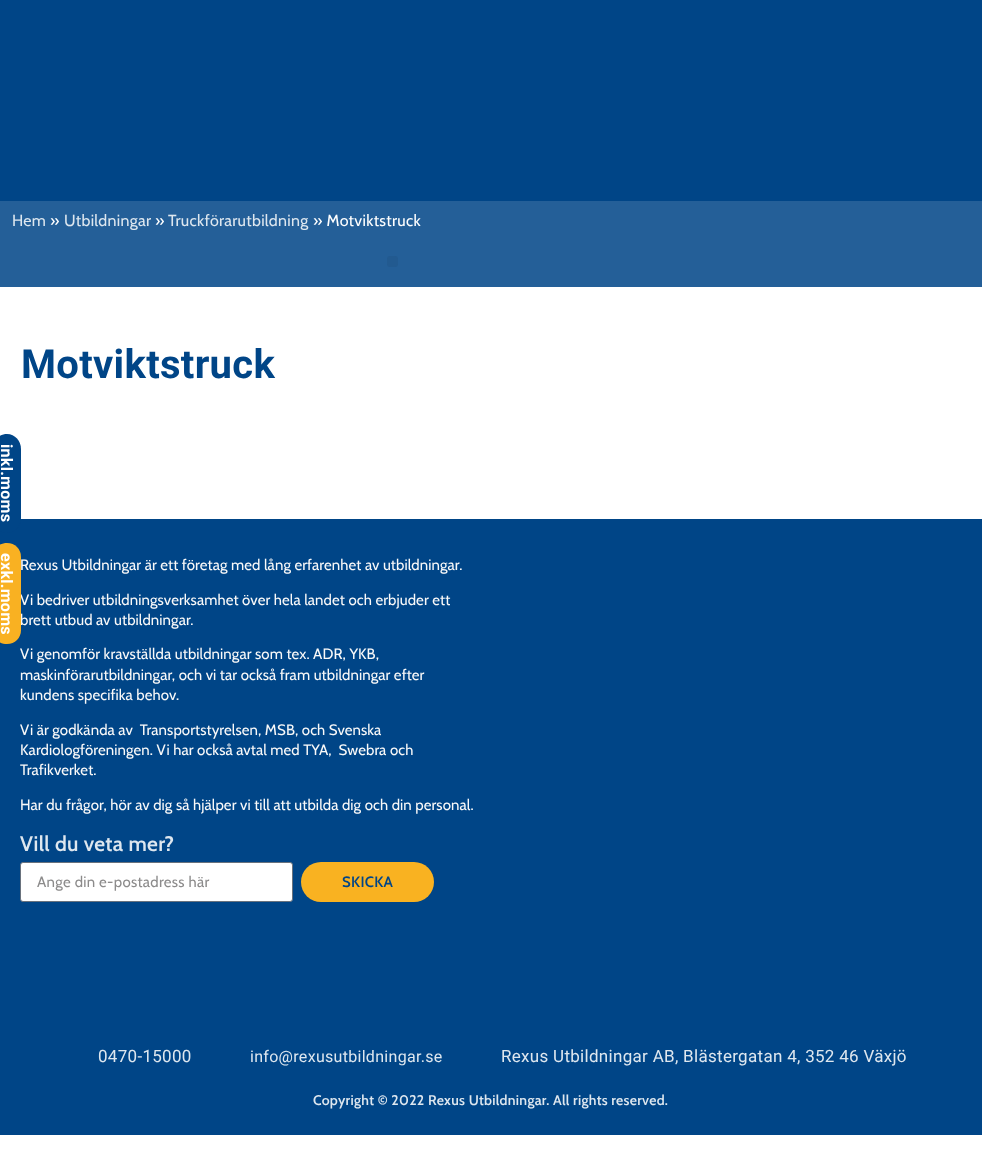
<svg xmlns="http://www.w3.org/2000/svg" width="982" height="1172">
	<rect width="100%" height="100%" fill="#FFFFFF" />
	<rect x="0" y="0" width="982" height="201" fill="#004587" />
	<rect x="0" y="201" width="982" height="86" fill="#245F98" />
	<text x="12" y="226" font-family="Cabin" font-size="16" letter-spacing="0.3" fill="#DEE7EF">Hem</text>
	<text x="50" y="226" font-family="Cabin" font-size="16" letter-spacing="0.3" fill="#FFFFFF">»</text>
	<text x="64" y="226" font-family="Cabin" font-size="16" letter-spacing="0.3" fill="#DEE7EF">Utbildningar</text>
	<text x="155" y="226" font-family="Cabin" font-size="16" letter-spacing="0.3" fill="#FFFFFF">»</text>
	<text x="168" y="226" font-family="Cabin" font-size="16" letter-spacing="0.3" fill="#DEE7EF">Truckförarutbildning</text>
	<text x="313" y="226" font-family="Cabin" font-size="16" letter-spacing="0.3" fill="#FFFFFF">» Motviktstruck</text>
	<rect x="387" y="256" width="11" height="11" rx="3" fill="#225A90" />
	<text x="21" y="378" font-family="Roboto" font-size="40" font-weight="700" letter-spacing="0.3" fill="#004587">Motviktstruck</text>
	<rect x="0" y="519" width="982" height="616" fill="#004587" />
	<path d="M21 449V518C21 526 15 533 7 533C-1 533-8 526-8 518V449C-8 441-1 434 7 434C15 434 21 441 21 449Z" fill="#004587" />
	<text x="1" y="444" transform="rotate(90 1 444)" font-family="Roboto" font-size="16" font-weight="700" letter-spacing="0.3" fill="#FFFFFF">inkl.moms</text>
	<g font-family="Cabin" font-size="15" letter-spacing="0.1" fill="#F9F9F9">
		<text x="20" y="605">Vi bedriver utbildningsverksamhet över hela landet och erbjuder ett</text>
		<text x="20" y="625">brett utbud av utbildningar.</text>
	</g>
	<path d="M21 557V630C21 638 15 644 7 644C-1 644-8 638-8 630V557C-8 549-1 543 7 543C15 543 21 549 21 557Z" fill="#F9B122" />
	<text x="1" y="553" transform="rotate(90 1 553)" font-family="Roboto" font-size="16" font-weight="700" letter-spacing="0.3" fill="#FFFFFF">exkl.moms</text>
	<g font-family="Cabin" font-size="15" letter-spacing="0.1" fill="#F9F9F9">
		<text x="20" y="570">Rexus Utbildningar är ett företag med lång erfarenhet av utbildningar.</text>
		<text x="20" y="659">Vi genomför kravställda utbildningar som tex. ADR, YKB,</text>
		<text x="20" y="680">maskinförarutbildningar, och vi tar också fram utbildningar efter</text>
		<text x="20" y="700">kundens specifika behov.</text>
		<text x="20" y="735" xml:space="preserve">Vi är godkända av  Transportstyrelsen, MSB, och Svenska</text>
		<text x="20" y="755" xml:space="preserve">Kardiologföreningen. Vi har också avtal med TYA,  Swebra och</text>
		<text x="20" y="775">Trafikverket.</text>
		<text x="20" y="810">Har du frågor, hör av dig så hjälper vi till att utbilda dig och din personal.</text>
	</g>
	<text x="20" y="851" font-family="Cabin" font-size="21" font-weight="600" letter-spacing="0.3" fill="#DEE7EF">Vill du veta mer?</text>
	<rect x="20.5" y="862.5" width="272" height="39" rx="2.5" fill="#FFFFFF" stroke="#69727D" />
	<text x="37" y="887" font-family="Cabin" font-size="15" letter-spacing="0.3" fill="#8C8B8B">Ange din e-postadress här</text>
	<rect x="301" y="862" width="133" height="40" rx="20" fill="#F9B221" />
	<text x="342" y="887" font-family="Cabin" font-size="15" font-weight="600" letter-spacing="0.3" fill="#004587">SKICKA</text>
	<text x="98" y="1062" font-family="Roboto" font-size="17" letter-spacing="0.3" fill="#DEE7EF">0470-15000</text>
	<text x="250" y="1062" font-family="Roboto" font-size="16" letter-spacing="0.3" fill="#DEE7EF">info@rexusutbildningar.se</text>
	<text x="501" y="1062" font-family="Roboto" font-size="17" letter-spacing="0.3" fill="#DEE7EF">Rexus Utbildningar AB, Blästergatan 4, 352 46 Växjö</text>
	<text x="313" y="1105" font-family="Cabin" font-size="14" font-weight="600" letter-spacing="0.3" fill="#DEE7EF">Copyright © 2022 Rexus Utbildningar. All rights reserved.</text>
</svg>
